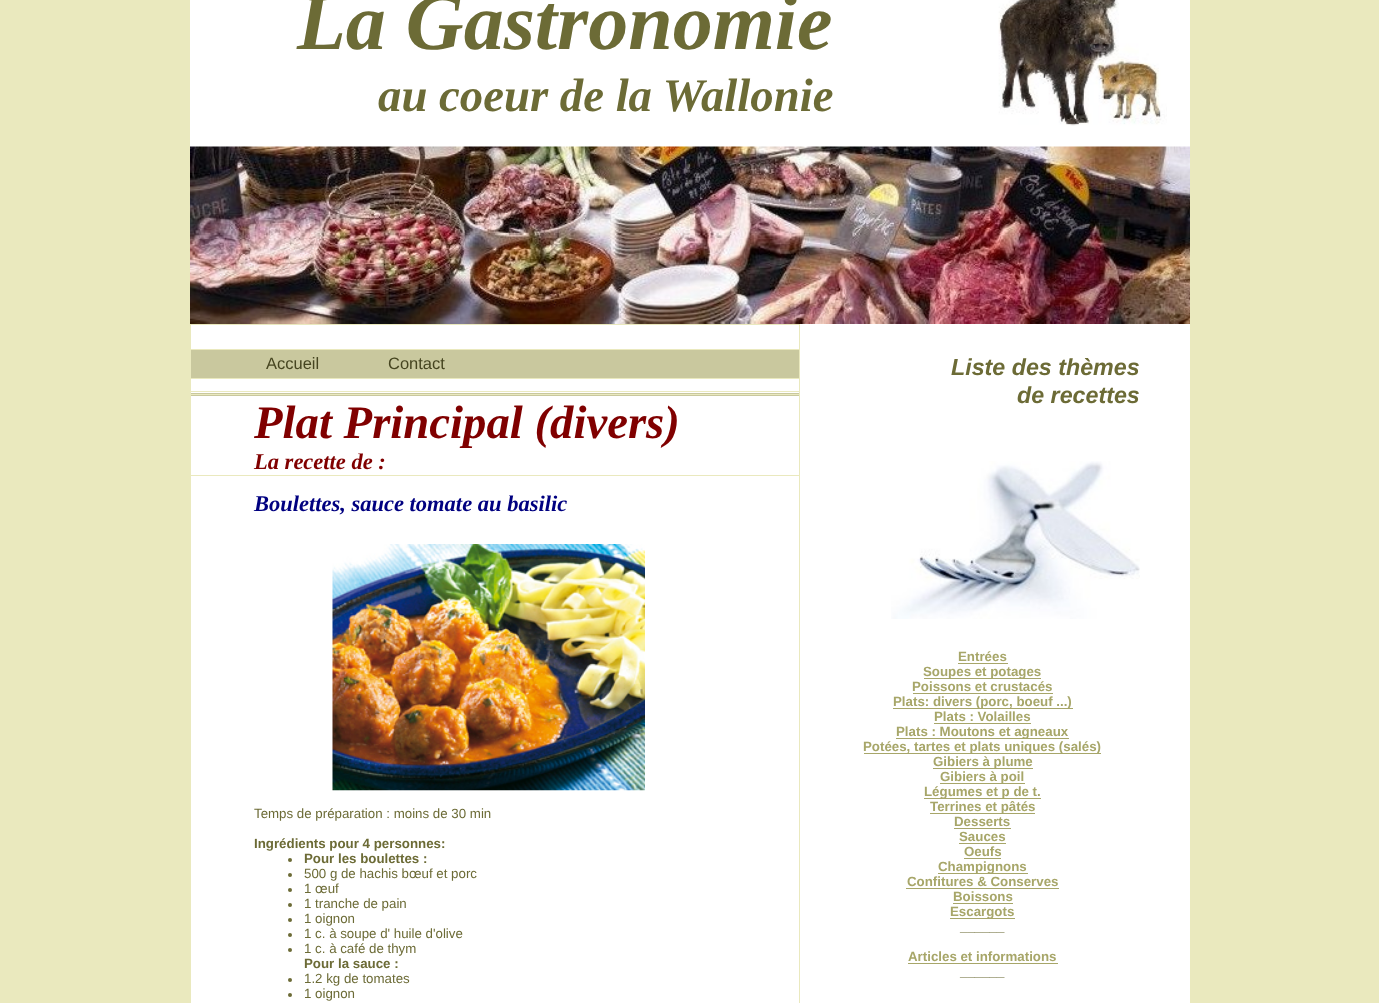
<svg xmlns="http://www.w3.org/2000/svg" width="1379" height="1003">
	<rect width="100%" height="100%" fill="#EAE9BE" />
	<rect x="190" y="0" width="1000" height="1003" fill="#FFFFFF" />
	<text x="297" y="49" font-family="Liberation Serif" font-size="80" font-weight="700" font-style="italic" fill="#6C6B36">La Gastronomie</text>
	<text x="378" y="111" font-family="Liberation Serif" font-size="46.75" font-weight="700" font-style="italic" fill="#6C6B36">au coeur de la Wallonie</text>
	<image x="998" y="0" width="169" height="126" href="assets/img1.png" />
	<image x="190" y="146" width="1000" height="178" href="assets/img2.png" />
	<rect x="190" y="324" width="610" height="1" fill="#EAE9BE" />
	<rect x="191" y="393" width="609" height="3" fill="#C9C89E" />
	<rect x="799" y="324" width="1" height="679" fill="#EAE9BE" />
	<rect x="190" y="324" width="1" height="679" fill="#EAE9BE" />
	<rect x="191" y="350" width="608" height="28" fill="#C9C89E" />
	<rect x="190" y="349" width="610" height="1" fill="#EAE9BE" />
	<g font-family="Liberation Sans" font-size="16.5" fill="#464520">
		<text x="266" y="369">Accueil</text>
		<text x="388" y="369">Contact</text>
	</g>
	<rect x="190" y="378" width="610" height="1" fill="#EAE9BE" />
	<rect x="190" y="391" width="610" height="1" fill="#EAE9BE" />
	<rect x="190" y="394" width="610" height="1" fill="#EAE9BE" />
	<text x="254" y="438" font-family="Liberation Serif" font-size="46.75" font-weight="700" font-style="italic" fill="#800000">Plat Principal (divers)</text>
	<text x="254" y="469" font-family="Liberation Serif" font-size="22.5" font-weight="700" font-style="italic" fill="#800000">La recette de :</text>
	<rect x="190" y="475" width="610" height="1" fill="#EAE9BE" />
	<text x="254" y="511" font-family="Liberation Serif" font-size="22.5" font-weight="700" font-style="italic" fill="#000080">Boulettes, sauce tomate au basilic</text>
	<image x="332" y="544" width="313" height="247" href="assets/img3.png" />
	<text x="254" y="818" font-family="Liberation Sans" font-size="13.3" fill="#6C6B36">Temps de préparation : moins de 30 min</text>
	<text x="254" y="848" font-family="Liberation Sans" font-size="13.3" font-weight="700" fill="#6C6B36">Ingrédients pour 4 personnes:</text>
	<circle cx="290" cy="860" r="2" fill="#6C6B36" />
	<text x="304" y="863" font-family="Liberation Sans" font-size="13.3" font-weight="700" fill="#6C6B36">Pour les boulettes :</text>
	<circle cx="290" cy="875" r="2" fill="#6C6B36" />
	<text x="304" y="878" font-family="Liberation Sans" font-size="13.3" fill="#6C6B36">500 g de hachis bœuf et porc</text>
	<circle cx="290" cy="890" r="2" fill="#6C6B36" />
	<text x="304" y="893" font-family="Liberation Sans" font-size="13.3" fill="#6C6B36">1 œuf</text>
	<circle cx="290" cy="905" r="2" fill="#6C6B36" />
	<text x="304" y="908" font-family="Liberation Sans" font-size="13.3" fill="#6C6B36">1 tranche de pain</text>
	<circle cx="290" cy="920" r="2" fill="#6C6B36" />
	<text x="304" y="923" font-family="Liberation Sans" font-size="13.3" fill="#6C6B36">1 oignon</text>
	<circle cx="290" cy="935" r="2" fill="#6C6B36" />
	<text x="304" y="938" font-family="Liberation Sans" font-size="13.3" fill="#6C6B36">1 c. à soupe d' huile d'olive</text>
	<circle cx="290" cy="950" r="2" fill="#6C6B36" />
	<text x="304" y="953" font-family="Liberation Sans" font-size="13.3" fill="#6C6B36">1 c. à café de thym</text>
	<text x="304" y="968" font-family="Liberation Sans" font-size="13.3" font-weight="700" fill="#6C6B36">Pour la sauce :</text>
	<circle cx="290" cy="980" r="2" fill="#6C6B36" />
	<text x="304" y="983" font-family="Liberation Sans" font-size="13.3" fill="#6C6B36">1.2 kg de tomates</text>
	<circle cx="290" cy="995" r="2" fill="#6C6B36" />
	<text x="304" y="998" font-family="Liberation Sans" font-size="13.3" fill="#6C6B36">1 oignon</text>
	<g font-family="Liberation Sans" font-size="23.25" font-weight="700" font-style="italic" fill="#6C6B36">
		<text x="951" y="375">Liste des thèmes</text>
		<text x="1017" y="403">de recettes</text>
	</g>
	<image x="891" y="461" width="249" height="158" href="assets/img4.png" />
	<text x="958" y="661" font-family="Liberation Sans" font-size="13.3" font-weight="700" fill="#A7A669">Entrées</text>
	<rect x="958" y="663" width="50" height="1" fill="#A7A669" />
	<rect x="924" y="678" width="117" height="1" fill="#A7A669" />
	<g font-family="Liberation Sans" font-size="13.3" font-weight="700" fill="#A7A669">
		<text x="923" y="676">Soupes et potages</text>
		<text x="912" y="691">Poissons et crustacés</text>
	</g>
	<rect x="913" y="693" width="140" height="1" fill="#A7A669" />
	<rect x="893" y="708" width="180" height="1" fill="#A7A669" />
	<g font-family="Liberation Sans" font-size="13.3" font-weight="700" fill="#A7A669">
		<text x="893" y="706">Plats: divers (porc, boeuf ...)</text>
		<text x="934" y="721">Plats : Volailles</text>
	</g>
	<rect x="934" y="723" width="97" height="1" fill="#A7A669" />
	<rect x="896" y="738" width="173" height="1" fill="#A7A669" />
	<text x="896" y="736" font-family="Liberation Sans" font-size="13.3" font-weight="700" fill="#A7A669">Plats : Moutons et agneaux</text>
	<rect x="864" y="753" width="237" height="1" fill="#A7A669" />
	<text x="863" y="751" font-family="Liberation Sans" font-size="13.3" font-weight="700" fill="#A7A669">Potées, tartes et plats uniques (salés)</text>
	<rect x="933" y="768" width="100" height="1" fill="#A7A669" />
	<text x="933" y="766" font-family="Liberation Sans" font-size="13.3" font-weight="700" fill="#A7A669">Gibiers à plume</text>
	<rect x="940" y="783" width="85" height="1" fill="#A7A669" />
	<text x="940" y="781" font-family="Liberation Sans" font-size="13.3" font-weight="700" fill="#A7A669">Gibiers à poil</text>
	<rect x="924" y="798" width="117" height="1" fill="#A7A669" />
	<text x="924" y="796" font-family="Liberation Sans" font-size="13.3" font-weight="700" fill="#A7A669">Légumes et p de t.</text>
	<rect x="930" y="813" width="105" height="1" fill="#A7A669" />
	<g font-family="Liberation Sans" font-size="13.3" font-weight="700" fill="#A7A669">
		<text x="930" y="811">Terrines et pâtés</text>
		<text x="954" y="826">Desserts</text>
	</g>
	<rect x="954" y="828" width="57" height="1" fill="#A7A669" />
	<text x="959" y="841" font-family="Liberation Sans" font-size="13.3" font-weight="700" fill="#A7A669">Sauces</text>
	<rect x="959" y="843" width="47" height="1" fill="#A7A669" />
	<text x="964" y="856" font-family="Liberation Sans" font-size="13.3" font-weight="700" fill="#A7A669">Oeufs</text>
	<rect x="964" y="858" width="37" height="1" fill="#A7A669" />
	<rect x="938" y="873" width="90" height="1" fill="#A7A669" />
	<g font-family="Liberation Sans" font-size="13.3" font-weight="700" fill="#A7A669">
		<text x="938" y="871">Champignons</text>
		<text x="907" y="886">Confitures &amp; Conserves</text>
	</g>
	<rect x="906" y="888" width="153" height="1" fill="#A7A669" />
	<text x="953" y="901" font-family="Liberation Sans" font-size="13.3" font-weight="700" fill="#A7A669">Boissons</text>
	<rect x="953" y="903" width="60" height="1" fill="#A7A669" />
	<rect x="950" y="918" width="65" height="1" fill="#A7A669" />
	<text x="950" y="916" font-family="Liberation Sans" font-size="13.3" font-weight="700" fill="#A7A669">Escargots</text>
	<text x="960" y="931" font-family="Liberation Sans" font-size="13.3" font-weight="700" fill="#6C6B36">______</text>
	<text x="908" y="961" font-family="Liberation Sans" font-size="13.3" font-weight="700" fill="#A7A669">Articles et informations</text>
	<rect x="908" y="963" width="150" height="1" fill="#A7A669" />
	<text x="960" y="976" font-family="Liberation Sans" font-size="13.3" font-weight="700" fill="#6C6B36">______</text>
</svg>
